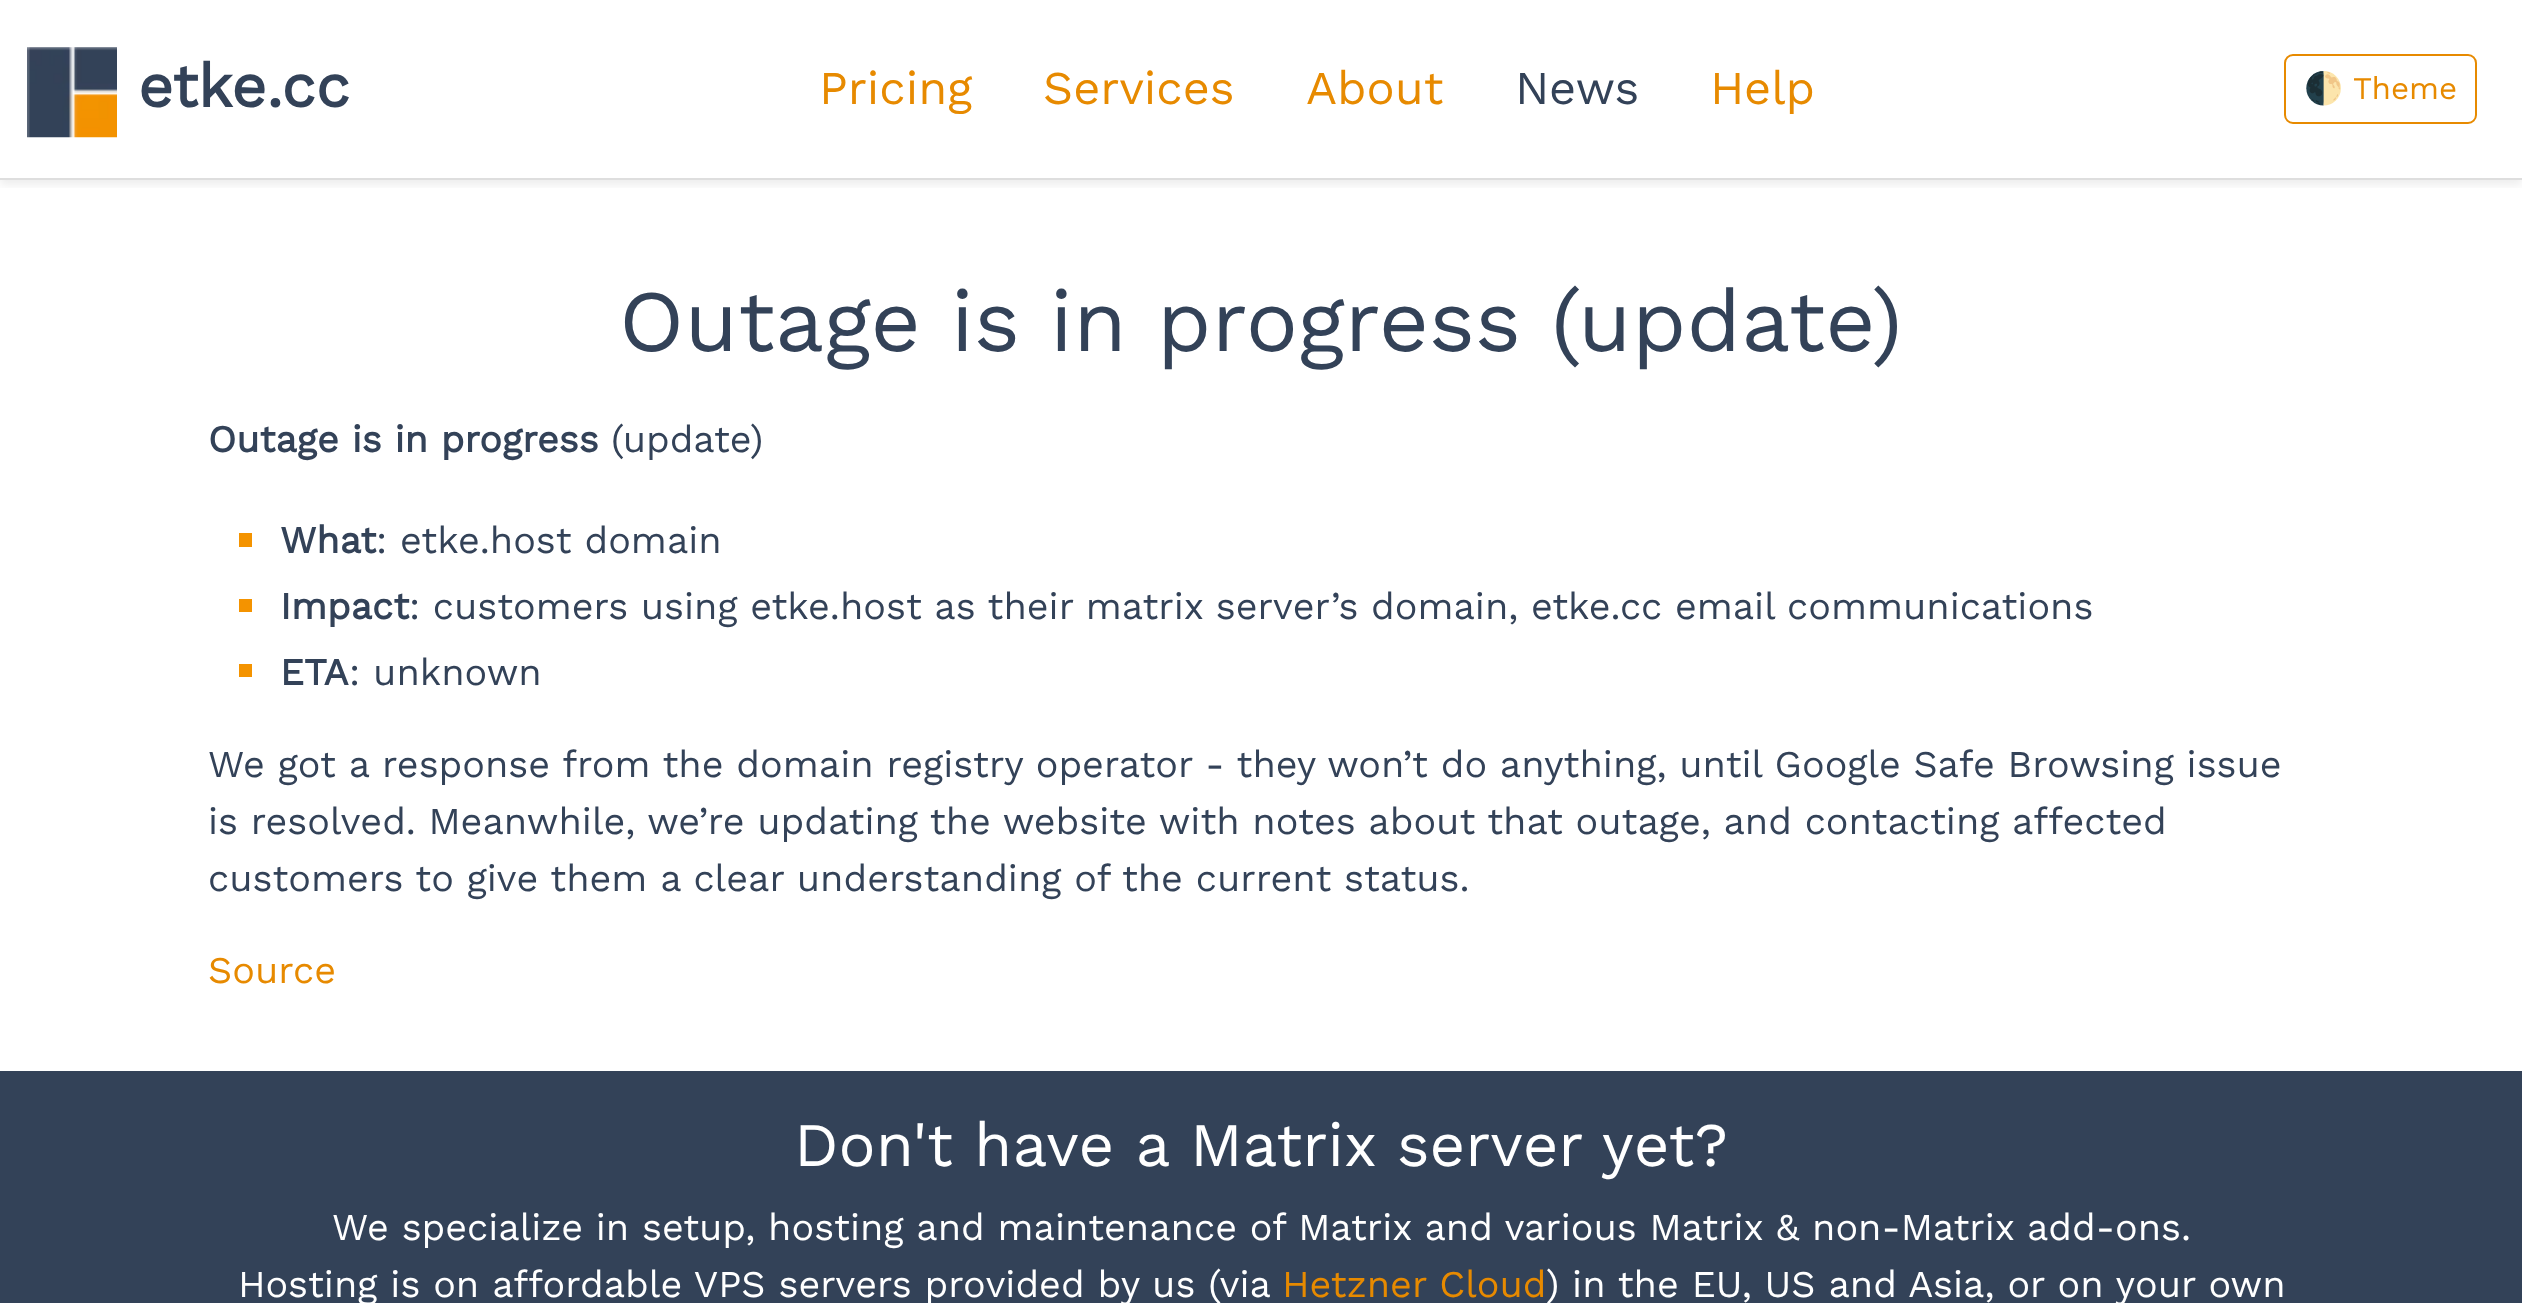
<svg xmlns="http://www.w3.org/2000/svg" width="2522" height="1303">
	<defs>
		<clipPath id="clip1"><rect x="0" y="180" width="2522" height="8" /></clipPath>
	</defs>
	<rect width="100%" height="100%" fill="#FFFFFF" />
	<g clip-path="url(#clip1)">
		<rect x="0" y="5" width="2522" height="180" fill="#000000" fill-opacity="0.07" filter="blur(4.5px)" />
	</g>
	<rect x="0" y="178" width="2522" height="2" fill="#DEDEDE" />
	<image x="27" y="47" width="90" height="91" href="assets/img1.png" />
	<text x="138" y="107" font-family="Work Sans" font-size="61" font-weight="700" fill="#334258">etke.cc</text>
	<g font-family="Work Sans" font-size="47" fill="#E78A00">
		<text x="819" y="104">Pricing</text>
		<text x="1043" y="104">Services</text>
		<text x="1306" y="104">About</text>
	</g>
	<text x="1515" y="104" font-family="Work Sans" font-size="47" fill="#334258">News</text>
	<text x="1710" y="104" font-family="Work Sans" font-size="47" fill="#E78A00">Help</text>
	<rect x="2285" y="55" width="191" height="68" rx="8" fill="none" stroke="#E78A00" stroke-width="2" />
	<text x="2304" y="99" font-family="Noto Color Emoji" font-size="31.5" fill="#E78A00">🌓</text>
	<text x="2353" y="99" font-family="Work Sans" font-size="31.5" fill="#E78A00">Theme</text>
	<text x="619" y="351" font-family="Work Sans" font-size="87.3" fill="#334258">Outage is in progress (update)</text>
	<text x="208" y="452" font-family="Work Sans" font-size="37.8" font-weight="700" fill="#334258">Outage is in progress</text>
	<text x="611" y="452" font-family="Work Sans" font-size="37.8" fill="#334258">(update)</text>
	<rect x="239" y="533" width="13" height="14" fill="#F49300" />
	<text x="280" y="553" font-family="Work Sans" font-size="37.8" font-weight="700" fill="#334258">What</text>
	<text x="376" y="553" font-family="Work Sans" font-size="37.8" fill="#334258">: etke.host domain</text>
	<rect x="239" y="599" width="13" height="13" fill="#F49300" />
	<text x="280" y="619" font-family="Work Sans" font-size="37.8" font-weight="700" fill="#334258">Impact</text>
	<text x="409" y="619" word-spacing="-0.25" font-family="Work Sans" font-size="37.8" fill="#334258">: customers using etke.host as their matrix server’s domain, etke.cc email communications</text>
	<rect x="239" y="664" width="13" height="13" fill="#F49300" />
	<text x="280" y="685" font-family="Work Sans" font-size="37.8" font-weight="700" fill="#334258">ETA</text>
	<g font-family="Work Sans" font-size="37.8" fill="#334258">
		<text x="349" y="685">: unknown</text>
		<text x="208" y="777" word-spacing="-0.1">We got a response from the domain registry operator - they won’t do anything, until Google Safe Browsing issue</text>
		<text x="208" y="834" word-spacing="-0.2">is resolved. Meanwhile, we’re updating the website with notes about that outage, and contacting affected</text>
		<text x="208" y="891" word-spacing="-0.1">customers to give them a clear understanding of the current status.</text>
	</g>
	<text x="208" y="983" font-family="Work Sans" font-size="37.8" fill="#E78A00">Source</text>
	<rect x="0" y="1071" width="2522" height="232" fill="#334258" />
	<text x="794" y="1166" font-family="Work Sans" font-size="61.9" fill="#FFFFFF">Don't have a Matrix server yet?</text>
	<g font-family="Work Sans" font-size="37.8" fill="#FFFFFF">
		<text x="332" y="1240" word-spacing="-0.1">We specialize in setup, hosting and maintenance of Matrix and various Matrix &amp; non-Matrix add-ons.</text>
		<text x="238" y="1297">Hosting is on affordable VPS servers provided by us (via</text>
	</g>
	<text x="1282" y="1297" font-family="Work Sans" font-size="37.8" fill="#E78A00">Hetzner Cloud</text>
	<text x="1546" y="1297" font-family="Work Sans" font-size="37.8" fill="#FFFFFF">) in the EU, US and Asia, or on your own</text>
</svg>
